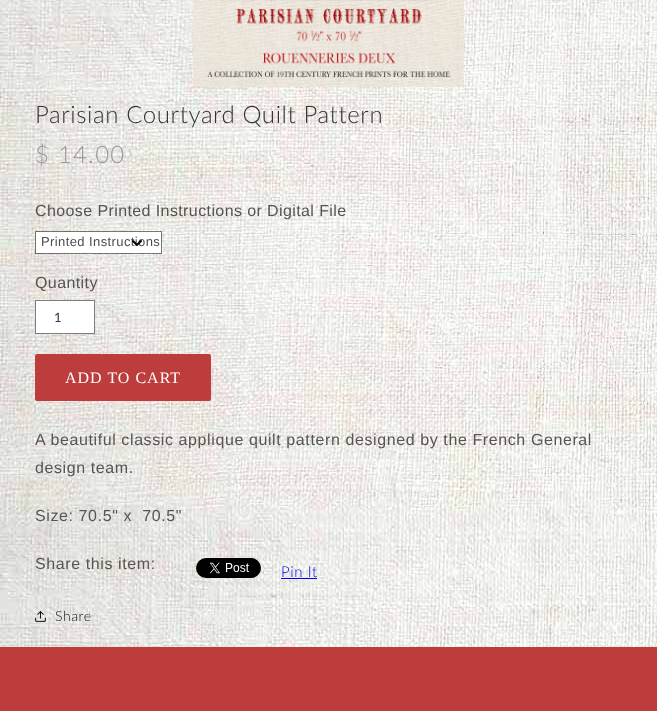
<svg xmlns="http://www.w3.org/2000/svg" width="657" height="711">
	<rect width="100%" height="100%" fill="#FFFFFF" />
	<image x="0" y="0" width="657" height="647" href="assets/img1.png" />
	<image x="193" y="0" width="271" height="87" href="assets/img2.png" />
	<text x="35" y="123" font-family="Lato" font-size="24" font-weight="300" letter-spacing="0.6" fill="#333333">Parisian Courtyard Quilt Pattern</text>
	<text x="35" y="163" font-family="Lato" font-size="24" font-weight="300" letter-spacing="1.25" fill="#999999">$ 14.00</text>
	<text x="35" y="216" font-family="Liberation Sans" font-size="16" letter-spacing="0.4" fill="#555555">Choose Printed Instructions or Digital File</text>
	<rect x="36" y="232" width="125" height="21" fill="#FFFFFF" />
	<text x="41" y="246" font-family="Liberation Sans" font-size="13" letter-spacing="0.4" fill="#4D4D4D">Printed Instructions</text>
	<image x="132" y="240" width="10" height="6" href="assets/img3.png" />
	<rect x="35.5" y="231.5" width="126" height="22" fill="none" stroke="#121212" stroke-opacity="0.55" />
	<text x="35" y="288" font-family="Liberation Sans" font-size="16" letter-spacing="0.4" fill="#555555">Quantity</text>
	<rect x="36" y="301" width="58" height="32" fill="#FFFFFF" />
	<rect x="35.5" y="300.5" width="59" height="33" fill="none" stroke="#7D7D7D" />
	<text x="54" y="322" font-family="Lato" font-size="13" fill="#333333">1</text>
	<rect x="35" y="354" width="176" height="47" rx="2" fill="#BD3D3D" />
	<text x="65" y="383" font-family="Liberation Serif" font-size="16" letter-spacing="1" fill="#FFFFFF">ADD TO CART</text>
	<g font-family="Liberation Sans" font-size="16" letter-spacing="0.6" fill="#555555">
		<text x="35" y="445">A beautiful classic applique quilt pattern designed by the French General</text>
		<text x="35" y="473">design team.</text>
		<text x="35" y="521" xml:space="preserve">Size: 70.5" x  70.5"</text>
		<text x="35" y="569">Share this item:</text>
	</g>
	<image x="196" y="558" width="65" height="20" href="assets/img4.png" />
	<text x="281" y="577" font-family="Lato" font-size="15" font-weight="300" letter-spacing="0.6" fill="#0000EE">Pin It</text>
	<rect x="281" y="578" width="36" height="1" fill="#0000EE" />
	<image x="35" y="611" width="11" height="11" href="assets/img5.png" />
	<text x="55" y="621" font-family="Lato" font-size="14" font-weight="300" letter-spacing="0.6" fill="#121212">Share</text>
	<rect x="0" y="647" width="657" height="64" fill="#BD3D3D" />
</svg>
